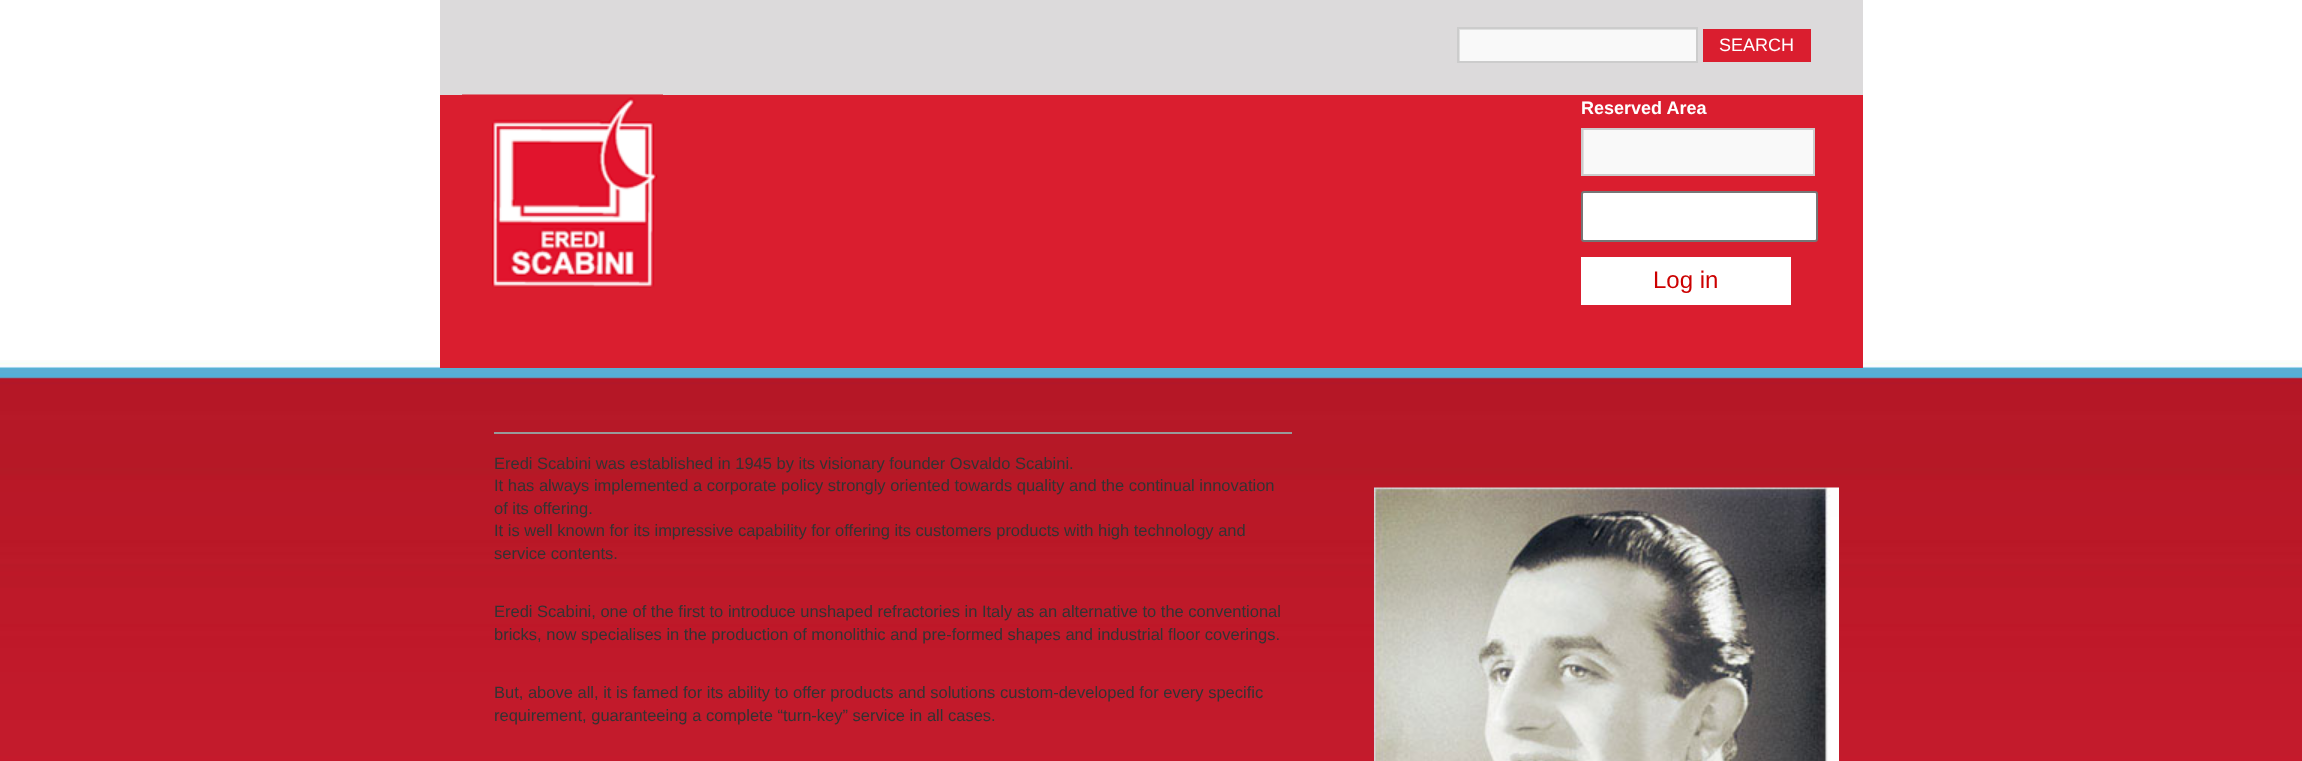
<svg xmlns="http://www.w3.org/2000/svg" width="2302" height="761">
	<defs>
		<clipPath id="clip1"><rect x="1458" y="29" width="239" height="33" /></clipPath>
		<clipPath id="clip2"><rect x="1583" y="129" width="231" height="45" /></clipPath>
	</defs>
	<rect width="100%" height="100%" fill="#FFFFFF" />
	<image x="0" y="360" width="2302" height="401" href="assets/img1.png" />
	<rect x="440" y="0" width="1423" height="95" fill="#DCDADB" />
	<rect x="1460" y="30" width="236" height="31" fill="#F9F9F9" />
	<g clip-path="url(#clip1)">
		<path d="M1310-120H1845V210H1310ZM1460 30H1698V63H1460Z" fill="#E0E0E0" fill-rule="evenodd" />
	</g>
	<rect x="1458" y="28" width="239" height="34" fill="none" stroke="#CCCCCC" stroke-width="2" />
	<rect x="1703" y="29" width="108" height="33" fill="#DA1E2F" />
	<text x="1719" y="51" font-family="Liberation Sans" font-size="18" fill="#FFFFFF">SEARCH</text>
	<rect x="440" y="95" width="1423" height="273" fill="#DA1E2F" />
	<image x="462" y="94" width="201" height="194" href="assets/img2.png" />
	<text x="1581" y="114" font-family="Liberation Sans" font-size="18" font-weight="700" fill="#FFFFFF">Reserved Area</text>
	<rect x="1584" y="130" width="229" height="44" fill="#F9F9F9" />
	<g clip-path="url(#clip2)">
		<path d="M1434-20H1962V322H1434ZM1584 130H1815V176H1584Z" fill="#E0E0E0" fill-rule="evenodd" />
	</g>
	<rect x="1582" y="129" width="232" height="46" fill="none" stroke="#CCCCCC" stroke-width="2" />
	<rect x="1582" y="192" width="235" height="49" rx="2" fill="#FFFFFF" stroke="#767676" stroke-width="2" />
	<rect x="1581" y="257" width="210" height="48" fill="#FFFFFF" />
	<text x="1653" y="288" font-family="Liberation Sans" font-size="24" fill="#CC0000">Log in</text>
	<rect x="494" y="432" width="798" height="2" fill="#999999" />
	<g font-family="Liberation Sans" font-size="16.5" fill="#333333">
		<text x="494" y="469">Eredi Scabini was established in 1945 by its visionary founder Osvaldo Scabini.</text>
		<text x="494" y="491">It has always implemented a corporate policy strongly oriented towards quality and the continual innovation</text>
		<text x="494" y="514">of its offering.</text>
		<text x="494" y="536">It is well known for its impressive capability for offering its customers products with high technology and</text>
		<text x="494" y="559">service contents.</text>
		<text x="494" y="617">Eredi Scabini, one of the first to introduce unshaped refractories in Italy as an alternative to the conventional</text>
		<text x="494" y="640">bricks, now specialises in the production of monolithic and pre-formed shapes and industrial floor coverings.</text>
		<text x="494" y="698">But, above all, it is famed for its ability to offer products and solutions custom-developed for every specific</text>
		<text x="494" y="721">requirement, guaranteeing a complete “turn-key” service in all cases.</text>
	</g>
	<image x="1374" y="487" width="465" height="274" href="assets/img3.png" />
</svg>
